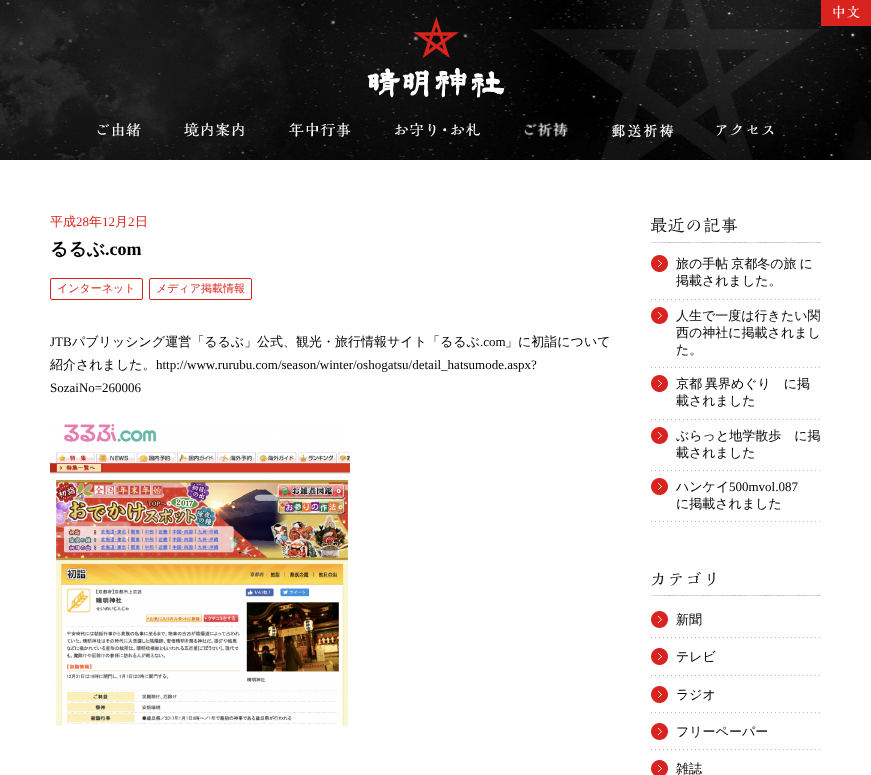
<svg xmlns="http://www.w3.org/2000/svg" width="871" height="775">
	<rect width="100%" height="100%" fill="#FFFFFF" />
	<image x="0" y="0" width="871" height="160" href="assets/img1.png" />
	<image x="821" y="0" width="50" height="26" href="assets/img2.png" />
	<image x="367" y="17" width="138" height="81" href="assets/img3.png" />
	<image x="97" y="123" width="44" height="14" href="assets/img4.png" />
	<image x="184" y="122" width="60" height="15" href="assets/img5.png" />
	<image x="289" y="122" width="62" height="15" href="assets/img6.png" />
	<image x="395" y="123" width="85" height="14" href="assets/img7.png" />
	<image x="524" y="122" width="45" height="15" href="assets/img8.png" />
	<image x="612" y="124" width="62" height="14" href="assets/img9.png" />
	<image x="716" y="124" width="58" height="12" href="assets/img10.png" />
	<text x="50" y="226" font-family="WenQuanYi Zen Hei" font-size="13" font-weight="500" fill="#D8231E">平成</text>
	<text x="76" y="226" font-family="Liberation Serif" font-size="13" fill="#D8231E">28</text>
	<text x="89" y="226" font-family="WenQuanYi Zen Hei" font-size="13" font-weight="500" fill="#D8231E">年</text>
	<text x="102" y="226" font-family="Liberation Serif" font-size="13" fill="#D8231E">12</text>
	<text x="115" y="226" font-family="WenQuanYi Zen Hei" font-size="13" font-weight="500" fill="#D8231E">月</text>
	<text x="128" y="226" font-family="Liberation Serif" font-size="13" fill="#D8231E">2</text>
	<text x="135" y="226" font-family="WenQuanYi Zen Hei" font-size="13" font-weight="500" fill="#D8231E">日</text>
	<text x="50" y="255" font-family="WenQuanYi Zen Hei" font-size="18" font-weight="700" fill="#000000">るるぶ</text>
	<text x="105" y="255" font-family="Liberation Serif" font-size="18" font-weight="700" fill="#000000">.com</text>
	<rect x="50.5" y="278.5" width="92" height="21" rx="1.5" fill="none" stroke="#D8231E" />
	<text x="57" y="292" font-family="WenQuanYi Zen Hei" font-size="11" font-weight="500" fill="#D8231E">インターネット</text>
	<rect x="149.5" y="278.5" width="102" height="21" rx="1.5" fill="none" stroke="#D8231E" />
	<text x="156" y="292" font-family="WenQuanYi Zen Hei" font-size="11" font-weight="500" fill="#D8231E">メディア掲載情報</text>
	<text x="50" y="346" font-family="Liberation Serif" font-size="13" fill="#000000">JTB</text>
	<text x="72" y="346" font-family="WenQuanYi Zen Hei" font-size="13" font-weight="500" fill="#000000">パブリッシング運営「るるぶ」公式、観光・旅行情報サイト「るるぶ</text>
	<text x="480" y="346" font-family="Liberation Serif" font-size="13" fill="#000000">.com</text>
	<g font-family="WenQuanYi Zen Hei" font-size="13" font-weight="500" fill="#000000">
		<text x="505" y="346">」に初詣について</text>
		<text x="50" y="369">紹介されました。</text>
	</g>
	<g font-family="Liberation Serif" font-size="13" fill="#000000">
		<text x="156" y="369">http://www.rurubu.com/season/winter/oshogatsu/detail_hatsumode.aspx?</text>
		<text x="50" y="392">SozaiNo=260006</text>
	</g>
	<image x="50" y="423" width="300" height="303" href="assets/img11.png" />
	<image x="651" y="242" width="170" height="1" href="assets/img12.png" />
	<image x="651" y="217" width="86" height="16" href="assets/img13.png" />
	<image x="651" y="299" width="169" height="1" href="assets/img14.png" />
	<image x="651" y="255" width="17" height="17" href="assets/img15.png" />
	<g font-family="WenQuanYi Zen Hei" font-size="13" font-weight="500" fill="#000000">
		<text x="676" y="268" word-spacing="-1">旅の手帖 京都冬の旅 に</text>
		<text x="676" y="285">掲載されました。</text>
	</g>
	<image x="651" y="367" width="169" height="1" href="assets/img14.png" />
	<image x="651" y="307" width="17" height="17" href="assets/img15.png" />
	<g font-family="WenQuanYi Zen Hei" font-size="13" font-weight="500" fill="#000000">
		<text x="676" y="320">人生で一度は行きたい関</text>
		<text x="676" y="337">西の神社に掲載されまし</text>
		<text x="676" y="354">た。</text>
	</g>
	<image x="651" y="419" width="169" height="1" href="assets/img14.png" />
	<image x="651" y="375" width="17" height="17" href="assets/img15.png" />
	<g font-family="WenQuanYi Zen Hei" font-size="13" font-weight="500" fill="#000000">
		<text x="676" y="388" word-spacing="-1">京都 異界めぐり　に掲</text>
		<text x="676" y="405">載されました</text>
	</g>
	<image x="651" y="470" width="169" height="1" href="assets/img14.png" />
	<image x="651" y="427" width="17" height="17" href="assets/img15.png" />
	<g font-family="WenQuanYi Zen Hei" font-size="13" font-weight="500" fill="#000000">
		<text x="676" y="440">ぶらっと地学散歩　に掲</text>
		<text x="676" y="457">載されました</text>
	</g>
	<image x="651" y="521" width="169" height="1" href="assets/img14.png" />
	<image x="651" y="478" width="17" height="17" href="assets/img15.png" />
	<text x="676" y="491" font-family="WenQuanYi Zen Hei" font-size="13" font-weight="500" fill="#000000">ハンケイ</text>
	<text x="729" y="491" font-family="Liberation Serif" font-size="13" fill="#000000">500mvol.087</text>
	<text x="676" y="508" font-family="WenQuanYi Zen Hei" font-size="13" font-weight="500" fill="#000000">に掲載されました</text>
	<image x="651" y="595" width="170" height="1" href="assets/img12.png" />
	<image x="651" y="572" width="64" height="14" href="assets/img16.png" />
	<image x="651" y="637" width="169" height="1" href="assets/img14.png" />
	<image x="651" y="611" width="17" height="17" href="assets/img15.png" />
	<text x="676" y="624" font-family="WenQuanYi Zen Hei" font-size="13" font-weight="500" fill="#000000">新聞</text>
	<image x="651" y="675" width="169" height="1" href="assets/img14.png" />
	<image x="651" y="648" width="17" height="17" href="assets/img15.png" />
	<text x="676" y="661" font-family="WenQuanYi Zen Hei" font-size="13" font-weight="500" fill="#000000">テレビ</text>
	<image x="651" y="712" width="169" height="1" href="assets/img14.png" />
	<image x="651" y="686" width="17" height="17" href="assets/img15.png" />
	<text x="676" y="699" font-family="WenQuanYi Zen Hei" font-size="13" font-weight="500" fill="#000000">ラジオ</text>
	<image x="651" y="749" width="169" height="1" href="assets/img14.png" />
	<image x="651" y="723" width="17" height="17" href="assets/img15.png" />
	<text x="676" y="736" font-family="WenQuanYi Zen Hei" font-size="13" font-weight="500" fill="#000000">フリーペーパー</text>
	<image x="651" y="760" width="17" height="15" href="assets/img17.png" />
	<text x="676" y="773" font-family="WenQuanYi Zen Hei" font-size="13" font-weight="500" fill="#000000">雑誌</text>
</svg>
